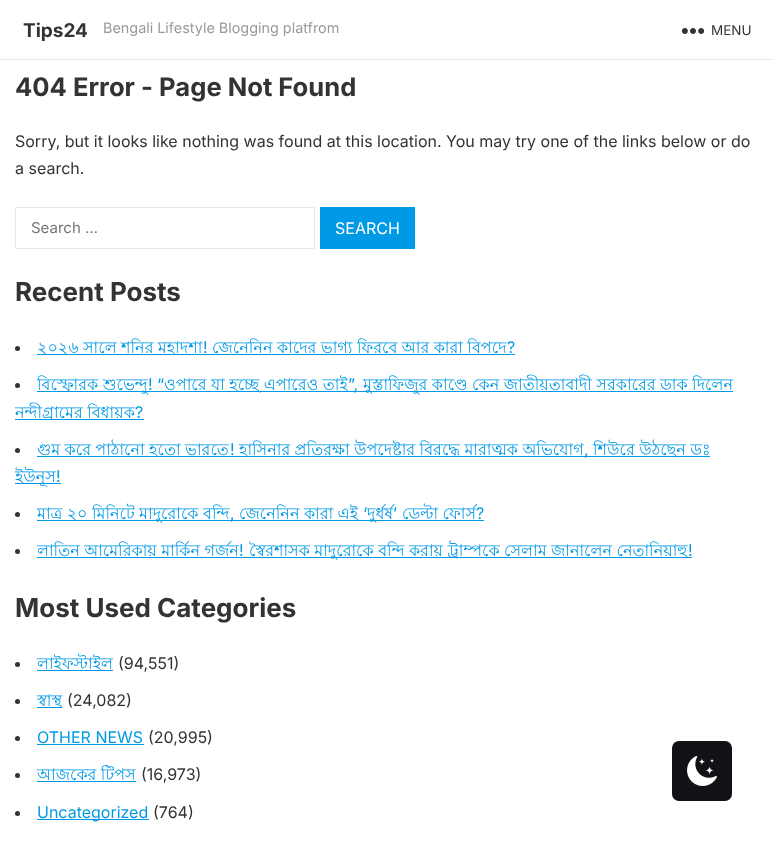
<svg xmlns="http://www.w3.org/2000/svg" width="772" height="841">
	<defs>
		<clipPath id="clip1"><rect x="103" y="19" width="236" height="17" /></clipPath>
	</defs>
	<rect width="100%" height="100%" fill="#FFFFFF" />
	<rect x="0" y="59" width="772" height="1" fill="#E9E9E9" />
	<text x="23" y="37" font-family="Inter" font-size="19" font-weight="700" fill="#333333">Tips24</text>
	<g clip-path="url(#clip1)">
		<text x="103" y="33" font-family="Inter" font-size="14.4" fill="#999999">Bengali Lifestyle Blogging platfrom</text>
	</g>
	<image x="681" y="28" width="24" height="6" href="assets/img1.png" />
	<text x="711" y="35" font-family="Inter" font-size="13.5" fill="#333333">MENU</text>
	<text x="15" y="96" font-family="Inter" font-size="25.6" font-weight="700" fill="#333333">404 Error - Page Not Found</text>
	<g font-family="Inter" font-size="16" fill="#333333">
		<text x="15" y="147">Sorry, but it looks like nothing was found at this location. You may try one of the links below or do</text>
		<text x="15" y="174">a search.</text>
	</g>
	<rect x="15.5" y="207.5" width="299" height="41" fill="none" stroke="#E9E9E9" />
	<text x="31" y="233" font-family="Inter" font-size="15" fill="#757575">Search …</text>
	<rect x="320" y="207" width="95" height="42" fill="#0099E5" />
	<text x="335" y="234" font-family="Inter" font-size="16" fill="#FFFFFF">SEARCH</text>
	<text x="15" y="301" font-family="Inter" font-size="26" font-weight="700" fill="#333333">Recent Posts</text>
	<circle cx="17.5" cy="348.5" r="2.5" fill="#333333" />
	<rect x="37" y="354" width="478" height="1" fill="#0099E5" />
	<text x="37" y="353" font-family="Lohit Bengali" font-size="16" fill="#0099E5">২০২৬ সালে শনির মহাদশা</text>
	<text x="203" y="353" font-family="Inter" font-size="16" fill="#0099E5">!</text>
	<text x="212" y="353" font-family="Lohit Bengali" font-size="16" fill="#0099E5">জেনেনিন কাদের ভাগ্য ফিরবে আর কারা বিপদে</text>
	<text x="507" y="353" font-family="Inter" font-size="16" fill="#0099E5">?</text>
	<circle cx="17.5" cy="385.5" r="2.5" fill="#333333" />
	<rect x="37" y="391" width="696" height="1" fill="#0099E5" />
	<text x="37" y="390" font-family="Lohit Bengali" font-size="16" fill="#0099E5">বিস্ফোরক শুভেন্দু</text>
	<text x="148" y="390" font-family="Inter" font-size="16" fill="#0099E5">! “</text>
	<text x="164" y="390" font-family="Lohit Bengali" font-size="16" fill="#0099E5">ওপারে যা হচ্ছে এপারেও তাই</text>
	<text x="348" y="390" font-family="Inter" font-size="16" fill="#0099E5">”,</text>
	<text x="363" y="390" font-family="Lohit Bengali" font-size="16" fill="#0099E5">মুস্তাফিজুর কাণ্ডে কেন জাতীয়তাবাদী সরকারের ডাক দিলেন</text>
	<rect x="15" y="419" width="129" height="1" fill="#0099E5" />
	<text x="15" y="418" font-family="Lohit Bengali" font-size="16" fill="#0099E5">নন্দীগ্রামের বিধায়ক</text>
	<text x="135" y="418" font-family="Inter" font-size="16" fill="#0099E5">?</text>
	<circle cx="17.5" cy="450.5" r="2.5" fill="#333333" />
	<rect x="37" y="456" width="673" height="1" fill="#0099E5" />
	<text x="37" y="455" font-family="Lohit Bengali" font-size="16" fill="#0099E5">গুম করে পাঠানো হতো ভারতে</text>
	<text x="230" y="455" font-family="Inter" font-size="16" fill="#0099E5">!</text>
	<g font-family="Lohit Bengali" font-size="16" fill="#0099E5">
		<text x="239" y="455">হাসিনার প্রতিরক্ষা উপদেষ্টার বিরদ্ধে মারাত্মক অভিযোগ</text>
		<text x="593" y="455">শিউরে উঠছেন ডঃ</text>
	</g>
	<text x="584" y="455" font-family="Inter" font-size="16" fill="#0099E5">,</text>
	<rect x="15" y="483" width="46" height="1" fill="#0099E5" />
	<text x="15" y="482" font-family="Lohit Bengali" font-size="16" fill="#0099E5">ইউনূস</text>
	<text x="56" y="482" font-family="Inter" font-size="16" fill="#0099E5">!</text>
	<rect x="37" y="520" width="447" height="1" fill="#0099E5" />
	<g font-family="Lohit Bengali" font-size="16" fill="#0099E5">
		<text x="37" y="519">মাত্র ২০ মিনিটে মাদুরোকে বন্দি</text>
		<text x="239" y="519">জেনেনিন কারা এই</text>
	</g>
	<text x="363" y="519" font-family="Inter" font-size="16" fill="#0099E5">‘</text>
	<g font-family="Lohit Bengali" font-size="16" fill="#0099E5">
		<text x="367" y="519">দুর্ধর্ষ</text>
		<text x="402" y="519">ডেল্টা ফোর্স</text>
	</g>
	<circle cx="17.5" cy="514.5" r="2.5" fill="#333333" />
	<g font-family="Inter" font-size="16" fill="#0099E5">
		<text x="393" y="519">’</text>
		<text x="476" y="519">?</text>
		<text x="230" y="519">,</text>
	</g>
	<circle cx="17.5" cy="551.5" r="2.5" fill="#333333" />
	<text x="37" y="556" font-family="Lohit Bengali" font-size="16" fill="#0099E5">লাতিন আমেরিকায় মার্কিন গর্জন</text>
	<text x="239" y="556" font-family="Inter" font-size="16" fill="#0099E5">!</text>
	<rect x="37" y="557" width="655" height="1" fill="#0099E5" />
	<text x="249" y="556" font-family="Lohit Bengali" font-size="16" fill="#0099E5">স্বৈরশাসক মাদুরোকে বন্দি করায় ট্রাম্পকে সেলাম জানালেন নেতানিয়াহু</text>
	<text x="688" y="556" font-family="Inter" font-size="16" fill="#0099E5">!</text>
	<text x="15" y="617" font-family="Inter" font-size="26" font-weight="700" fill="#333333">Most Used Categories</text>
	<circle cx="17.5" cy="664.5" r="2.5" fill="#333333" />
	<rect x="37" y="670" width="76" height="1" fill="#0099E5" />
	<text x="37" y="669" font-family="Lohit Bengali" font-size="16" fill="#0099E5">লাইফস্টাইল</text>
	<text x="118" y="669" font-family="Inter" font-size="16" fill="#333333">(94,551)</text>
	<circle cx="17.5" cy="701.5" r="2.5" fill="#333333" />
	<rect x="37" y="707" width="25" height="1" fill="#0099E5" />
	<text x="37" y="706" font-family="Lohit Bengali" font-size="16" fill="#0099E5">স্বাস্থ</text>
	<text x="67" y="706" font-family="Inter" font-size="16" fill="#333333">(24,082)</text>
	<circle cx="17.5" cy="738.5" r="2.5" fill="#333333" />
	<text x="37" y="743" font-family="Inter" font-size="16" fill="#0099E5">OTHER NEWS</text>
	<rect x="37" y="744" width="107" height="1" fill="#0099E5" />
	<text x="148" y="743" font-family="Inter" font-size="16" fill="#333333">(20,995)</text>
	<circle cx="17.5" cy="775.5" r="2.5" fill="#333333" />
	<text x="37" y="780" font-family="Lohit Bengali" font-size="16" fill="#0099E5">আজকের টিপস</text>
	<rect x="37" y="781" width="99" height="1" fill="#0099E5" />
	<text x="141" y="780" font-family="Inter" font-size="16" fill="#333333">(16,973)</text>
	<circle cx="17.5" cy="813.5" r="2.5" fill="#333333" />
	<rect x="37" y="819" width="112" height="1" fill="#0099E5" />
	<text x="37" y="818" font-family="Inter" font-size="16" fill="#0099E5">Uncategorized</text>
	<text x="153" y="818" font-family="Inter" font-size="16" fill="#333333">(764)</text>
	<rect x="672" y="741" width="60" height="60" rx="7" fill="#121116" />
	<image x="687" y="756" width="30" height="30" href="assets/img2.png" />
</svg>
